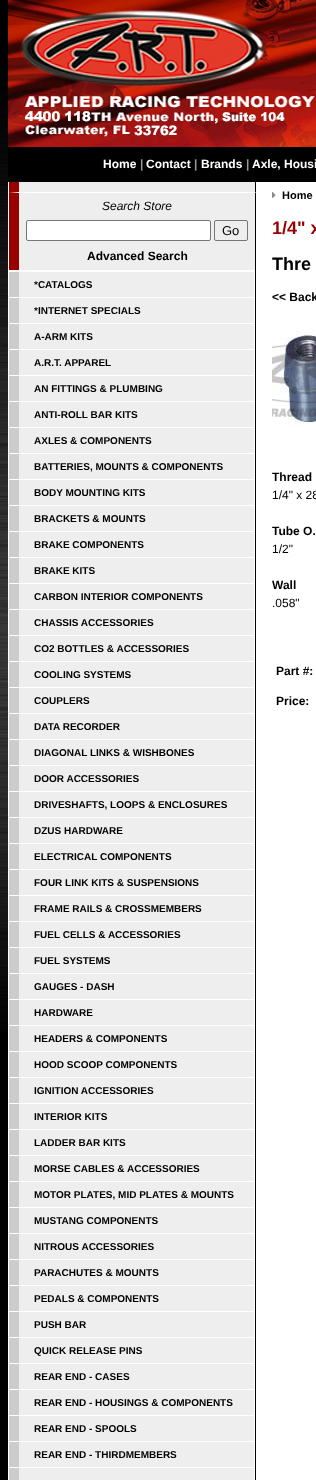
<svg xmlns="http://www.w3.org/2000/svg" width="316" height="1480">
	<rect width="100%" height="100%" fill="#000000" />
	<image x="0" y="62" width="8" height="970" href="assets/img1.png" />
	<image x="8" y="0" width="308" height="147" href="assets/img2.png" />
	<text x="103" y="168" font-family="Liberation Sans" font-size="12" font-weight="700" fill="#FFFFFF">Home</text>
	<text x="140" y="168" font-family="Liberation Sans" font-size="12" font-weight="700" fill="#999999">|</text>
	<text x="146" y="168" font-family="Liberation Sans" font-size="12" font-weight="700" fill="#FFFFFF">Contact</text>
	<text x="194" y="168" font-family="Liberation Sans" font-size="12" font-weight="700" fill="#999999">|</text>
	<text x="201" y="168" font-family="Liberation Sans" font-size="12" font-weight="700" fill="#FFFFFF">Brands</text>
	<text x="246" y="168" font-family="Liberation Sans" font-size="12" font-weight="700" fill="#999999">|</text>
	<text x="252" y="168" font-family="Liberation Sans" font-size="12" font-weight="700" fill="#FFFFFF">Axle, Housi</text>
	<rect x="8" y="182" width="308" height="1298" fill="#FFFFFF" />
	<rect x="9" y="182" width="246" height="11" fill="#EEEEEE" />
	<rect x="255" y="182" width="1" height="1298" fill="#000000" />
	<path d="M256 193H9L19 192H255Z" fill="#FFFFFF" />
	<path d="M9 193V182H19V192Z" fill="#990000" />
	<rect x="19" y="193" width="236" height="77" fill="#EEEEEE" />
	<rect x="9" y="193" width="10" height="77" fill="#990000" />
	<text x="102" y="210" font-family="Liberation Sans" font-size="12" font-style="italic" fill="#000000">Search Store</text>
	<rect x="26.5" y="220.5" width="184" height="20" rx="1.5" fill="#FFFFFF" stroke="#767676" />
	<rect x="214.5" y="220.5" width="33" height="20" rx="1.5" fill="none" stroke="#767676" />
	<text x="222" y="235" font-family="Liberation Sans" font-size="13" fill="#000000">Go</text>
	<text x="87" y="260" font-family="Liberation Sans" font-size="12" font-weight="700" fill="#000000">Advanced Search</text>
	<rect x="19" y="272" width="235" height="25" fill="#EEEEEE" />
	<rect x="9" y="272" width="10" height="25" fill="#CCCCCC" />
	<text x="34" y="288" font-family="Liberation Sans" font-size="10" font-weight="700" fill="#000000">*CATALOGS</text>
	<rect x="19" y="298" width="235" height="25" fill="#EEEEEE" />
	<rect x="9" y="298" width="10" height="25" fill="#CCCCCC" />
	<text x="34" y="314" font-family="Liberation Sans" font-size="10" font-weight="700" fill="#000000">*INTERNET SPECIALS</text>
	<rect x="19" y="324" width="235" height="25" fill="#EEEEEE" />
	<rect x="9" y="324" width="10" height="25" fill="#CCCCCC" />
	<text x="34" y="340" font-family="Liberation Sans" font-size="10" font-weight="700" fill="#000000">A-ARM KITS</text>
	<rect x="19" y="350" width="235" height="25" fill="#EEEEEE" />
	<rect x="9" y="350" width="10" height="25" fill="#CCCCCC" />
	<text x="34" y="366" font-family="Liberation Sans" font-size="10" font-weight="700" fill="#000000">A.R.T. APPAREL</text>
	<rect x="19" y="376" width="235" height="25" fill="#EEEEEE" />
	<rect x="9" y="376" width="10" height="25" fill="#CCCCCC" />
	<text x="34" y="392" font-family="Liberation Sans" font-size="10" font-weight="700" fill="#000000">AN FITTINGS &amp; PLUMBING</text>
	<rect x="19" y="402" width="235" height="25" fill="#EEEEEE" />
	<rect x="9" y="402" width="10" height="25" fill="#CCCCCC" />
	<text x="34" y="418" font-family="Liberation Sans" font-size="10" font-weight="700" fill="#000000">ANTI-ROLL BAR KITS</text>
	<rect x="19" y="428" width="235" height="25" fill="#EEEEEE" />
	<rect x="9" y="428" width="10" height="25" fill="#CCCCCC" />
	<text x="34" y="444" font-family="Liberation Sans" font-size="10" font-weight="700" fill="#000000">AXLES &amp; COMPONENTS</text>
	<rect x="19" y="454" width="235" height="25" fill="#EEEEEE" />
	<rect x="9" y="454" width="10" height="25" fill="#CCCCCC" />
	<text x="34" y="470" font-family="Liberation Sans" font-size="10" font-weight="700" fill="#000000">BATTERIES, MOUNTS &amp; COMPONENTS</text>
	<rect x="19" y="480" width="235" height="25" fill="#EEEEEE" />
	<rect x="9" y="480" width="10" height="25" fill="#CCCCCC" />
	<text x="34" y="496" font-family="Liberation Sans" font-size="10" font-weight="700" fill="#000000">BODY MOUNTING KITS</text>
	<rect x="19" y="506" width="235" height="25" fill="#EEEEEE" />
	<rect x="9" y="506" width="10" height="25" fill="#CCCCCC" />
	<text x="34" y="522" font-family="Liberation Sans" font-size="10" font-weight="700" fill="#000000">BRACKETS &amp; MOUNTS</text>
	<rect x="19" y="532" width="235" height="25" fill="#EEEEEE" />
	<rect x="9" y="532" width="10" height="25" fill="#CCCCCC" />
	<text x="34" y="548" font-family="Liberation Sans" font-size="10" font-weight="700" fill="#000000">BRAKE COMPONENTS</text>
	<rect x="19" y="558" width="235" height="25" fill="#EEEEEE" />
	<rect x="9" y="558" width="10" height="25" fill="#CCCCCC" />
	<text x="34" y="574" font-family="Liberation Sans" font-size="10" font-weight="700" fill="#000000">BRAKE KITS</text>
	<rect x="19" y="584" width="235" height="25" fill="#EEEEEE" />
	<rect x="9" y="584" width="10" height="25" fill="#CCCCCC" />
	<text x="34" y="600" font-family="Liberation Sans" font-size="10" font-weight="700" fill="#000000">CARBON INTERIOR COMPONENTS</text>
	<rect x="19" y="610" width="235" height="25" fill="#EEEEEE" />
	<rect x="9" y="610" width="10" height="25" fill="#CCCCCC" />
	<text x="34" y="626" font-family="Liberation Sans" font-size="10" font-weight="700" fill="#000000">CHASSIS ACCESSORIES</text>
	<rect x="19" y="636" width="235" height="25" fill="#EEEEEE" />
	<rect x="9" y="636" width="10" height="25" fill="#CCCCCC" />
	<text x="34" y="652" font-family="Liberation Sans" font-size="10" font-weight="700" fill="#000000">CO2 BOTTLES &amp; ACCESSORIES</text>
	<rect x="19" y="662" width="235" height="25" fill="#EEEEEE" />
	<rect x="9" y="662" width="10" height="25" fill="#CCCCCC" />
	<text x="34" y="678" font-family="Liberation Sans" font-size="10" font-weight="700" fill="#000000">COOLING SYSTEMS</text>
	<rect x="19" y="688" width="235" height="25" fill="#EEEEEE" />
	<rect x="9" y="688" width="10" height="25" fill="#CCCCCC" />
	<text x="34" y="704" font-family="Liberation Sans" font-size="10" font-weight="700" fill="#000000">COUPLERS</text>
	<rect x="19" y="714" width="235" height="25" fill="#EEEEEE" />
	<rect x="9" y="714" width="10" height="25" fill="#CCCCCC" />
	<text x="34" y="730" font-family="Liberation Sans" font-size="10" font-weight="700" fill="#000000">DATA RECORDER</text>
	<rect x="19" y="740" width="235" height="25" fill="#EEEEEE" />
	<rect x="9" y="740" width="10" height="25" fill="#CCCCCC" />
	<text x="34" y="756" font-family="Liberation Sans" font-size="10" font-weight="700" fill="#000000">DIAGONAL LINKS &amp; WISHBONES</text>
	<rect x="19" y="766" width="235" height="25" fill="#EEEEEE" />
	<rect x="9" y="766" width="10" height="25" fill="#CCCCCC" />
	<text x="34" y="782" font-family="Liberation Sans" font-size="10" font-weight="700" fill="#000000">DOOR ACCESSORIES</text>
	<rect x="19" y="792" width="235" height="25" fill="#EEEEEE" />
	<rect x="9" y="792" width="10" height="25" fill="#CCCCCC" />
	<text x="34" y="808" font-family="Liberation Sans" font-size="10" font-weight="700" fill="#000000">DRIVESHAFTS, LOOPS &amp; ENCLOSURES</text>
	<rect x="19" y="818" width="235" height="25" fill="#EEEEEE" />
	<rect x="9" y="818" width="10" height="25" fill="#CCCCCC" />
	<text x="34" y="834" font-family="Liberation Sans" font-size="10" font-weight="700" fill="#000000">DZUS HARDWARE</text>
	<rect x="19" y="844" width="235" height="25" fill="#EEEEEE" />
	<rect x="9" y="844" width="10" height="25" fill="#CCCCCC" />
	<text x="34" y="860" font-family="Liberation Sans" font-size="10" font-weight="700" fill="#000000">ELECTRICAL COMPONENTS</text>
	<rect x="19" y="870" width="235" height="25" fill="#EEEEEE" />
	<rect x="9" y="870" width="10" height="25" fill="#CCCCCC" />
	<text x="34" y="886" font-family="Liberation Sans" font-size="10" font-weight="700" fill="#000000">FOUR LINK KITS &amp; SUSPENSIONS</text>
	<rect x="19" y="896" width="235" height="25" fill="#EEEEEE" />
	<rect x="9" y="896" width="10" height="25" fill="#CCCCCC" />
	<text x="34" y="912" font-family="Liberation Sans" font-size="10" font-weight="700" fill="#000000">FRAME RAILS &amp; CROSSMEMBERS</text>
	<rect x="19" y="922" width="235" height="25" fill="#EEEEEE" />
	<rect x="9" y="922" width="10" height="25" fill="#CCCCCC" />
	<text x="34" y="938" font-family="Liberation Sans" font-size="10" font-weight="700" fill="#000000">FUEL CELLS &amp; ACCESSORIES</text>
	<rect x="19" y="948" width="235" height="25" fill="#EEEEEE" />
	<rect x="9" y="948" width="10" height="25" fill="#CCCCCC" />
	<text x="34" y="964" font-family="Liberation Sans" font-size="10" font-weight="700" fill="#000000">FUEL SYSTEMS</text>
	<rect x="19" y="974" width="235" height="25" fill="#EEEEEE" />
	<rect x="9" y="974" width="10" height="25" fill="#CCCCCC" />
	<text x="34" y="990" font-family="Liberation Sans" font-size="10" font-weight="700" fill="#000000">GAUGES - DASH</text>
	<rect x="19" y="1000" width="235" height="25" fill="#EEEEEE" />
	<rect x="9" y="1000" width="10" height="25" fill="#CCCCCC" />
	<text x="34" y="1016" font-family="Liberation Sans" font-size="10" font-weight="700" fill="#000000">HARDWARE</text>
	<rect x="19" y="1026" width="235" height="25" fill="#EEEEEE" />
	<rect x="9" y="1026" width="10" height="25" fill="#CCCCCC" />
	<text x="34" y="1042" font-family="Liberation Sans" font-size="10" font-weight="700" fill="#000000">HEADERS &amp; COMPONENTS</text>
	<rect x="19" y="1052" width="235" height="25" fill="#EEEEEE" />
	<rect x="9" y="1052" width="10" height="25" fill="#CCCCCC" />
	<text x="34" y="1068" font-family="Liberation Sans" font-size="10" font-weight="700" fill="#000000">HOOD SCOOP COMPONENTS</text>
	<rect x="19" y="1078" width="235" height="25" fill="#EEEEEE" />
	<rect x="9" y="1078" width="10" height="25" fill="#CCCCCC" />
	<text x="34" y="1094" font-family="Liberation Sans" font-size="10" font-weight="700" fill="#000000">IGNITION ACCESSORIES</text>
	<rect x="19" y="1104" width="235" height="25" fill="#EEEEEE" />
	<rect x="9" y="1104" width="10" height="25" fill="#CCCCCC" />
	<text x="34" y="1120" font-family="Liberation Sans" font-size="10" font-weight="700" fill="#000000">INTERIOR KITS</text>
	<rect x="19" y="1130" width="235" height="25" fill="#EEEEEE" />
	<rect x="9" y="1130" width="10" height="25" fill="#CCCCCC" />
	<text x="34" y="1146" font-family="Liberation Sans" font-size="10" font-weight="700" fill="#000000">LADDER BAR KITS</text>
	<rect x="19" y="1156" width="235" height="25" fill="#EEEEEE" />
	<rect x="9" y="1156" width="10" height="25" fill="#CCCCCC" />
	<text x="34" y="1172" font-family="Liberation Sans" font-size="10" font-weight="700" fill="#000000">MORSE CABLES &amp; ACCESSORIES</text>
	<rect x="19" y="1182" width="235" height="25" fill="#EEEEEE" />
	<rect x="9" y="1182" width="10" height="25" fill="#CCCCCC" />
	<text x="34" y="1198" font-family="Liberation Sans" font-size="10" font-weight="700" fill="#000000">MOTOR PLATES, MID PLATES &amp; MOUNTS</text>
	<rect x="19" y="1208" width="235" height="25" fill="#EEEEEE" />
	<rect x="9" y="1208" width="10" height="25" fill="#CCCCCC" />
	<text x="34" y="1224" font-family="Liberation Sans" font-size="10" font-weight="700" fill="#000000">MUSTANG COMPONENTS</text>
	<rect x="19" y="1234" width="235" height="25" fill="#EEEEEE" />
	<rect x="9" y="1234" width="10" height="25" fill="#CCCCCC" />
	<text x="34" y="1250" font-family="Liberation Sans" font-size="10" font-weight="700" fill="#000000">NITROUS ACCESSORIES</text>
	<rect x="19" y="1260" width="235" height="25" fill="#EEEEEE" />
	<rect x="9" y="1260" width="10" height="25" fill="#CCCCCC" />
	<text x="34" y="1276" font-family="Liberation Sans" font-size="10" font-weight="700" fill="#000000">PARACHUTES &amp; MOUNTS</text>
	<rect x="19" y="1286" width="235" height="25" fill="#EEEEEE" />
	<rect x="9" y="1286" width="10" height="25" fill="#CCCCCC" />
	<text x="34" y="1302" font-family="Liberation Sans" font-size="10" font-weight="700" fill="#000000">PEDALS &amp; COMPONENTS</text>
	<rect x="19" y="1312" width="235" height="25" fill="#EEEEEE" />
	<rect x="9" y="1312" width="10" height="25" fill="#CCCCCC" />
	<text x="34" y="1328" font-family="Liberation Sans" font-size="10" font-weight="700" fill="#000000">PUSH BAR</text>
	<rect x="19" y="1338" width="235" height="25" fill="#EEEEEE" />
	<rect x="9" y="1338" width="10" height="25" fill="#CCCCCC" />
	<text x="34" y="1354" font-family="Liberation Sans" font-size="10" font-weight="700" fill="#000000">QUICK RELEASE PINS</text>
	<rect x="19" y="1364" width="235" height="25" fill="#EEEEEE" />
	<rect x="9" y="1364" width="10" height="25" fill="#CCCCCC" />
	<text x="34" y="1380" font-family="Liberation Sans" font-size="10" font-weight="700" fill="#000000">REAR END - CASES</text>
	<rect x="19" y="1390" width="235" height="25" fill="#EEEEEE" />
	<rect x="9" y="1390" width="10" height="25" fill="#CCCCCC" />
	<text x="34" y="1406" font-family="Liberation Sans" font-size="10" font-weight="700" fill="#000000">REAR END - HOUSINGS &amp; COMPONENTS</text>
	<rect x="19" y="1416" width="235" height="25" fill="#EEEEEE" />
	<rect x="9" y="1416" width="10" height="25" fill="#CCCCCC" />
	<text x="34" y="1432" font-family="Liberation Sans" font-size="10" font-weight="700" fill="#000000">REAR END - SPOOLS</text>
	<rect x="19" y="1442" width="235" height="25" fill="#EEEEEE" />
	<rect x="9" y="1442" width="10" height="25" fill="#CCCCCC" />
	<text x="34" y="1458" font-family="Liberation Sans" font-size="10" font-weight="700" fill="#000000">REAR END - THIRDMEMBERS</text>
	<rect x="19" y="1468" width="235" height="12" fill="#EEEEEE" />
	<rect x="9" y="1468" width="10" height="12" fill="#CCCCCC" />
	<image x="272" y="192" width="4" height="6" href="assets/img3.png" />
	<text x="282" y="199" font-family="Liberation Sans" font-size="11" font-weight="700" fill="#000000">Home</text>
	<text x="272" y="234" font-family="Liberation Sans" font-size="18" font-weight="700" fill="#990000">1/4" x</text>
	<text x="272" y="270" font-family="Liberation Sans" font-size="18" font-weight="700" fill="#000000">Thre</text>
	<text x="272" y="301" font-family="Liberation Sans" font-size="12" font-weight="700" fill="#000000">&lt;&lt; Back</text>
	<image x="272" y="330" width="44" height="95" href="assets/img4.png" />
	<text x="272" y="481" font-family="Liberation Sans" font-size="12" font-weight="700" fill="#000000">Thread</text>
	<text x="272" y="499" font-family="Liberation Sans" font-size="12" fill="#000000">1/4" x 28</text>
	<text x="272" y="535" font-family="Liberation Sans" font-size="12" font-weight="700" fill="#000000">Tube O.</text>
	<text x="272" y="553" font-family="Liberation Sans" font-size="12" fill="#000000">1/2"</text>
	<text x="272" y="589" font-family="Liberation Sans" font-size="12" font-weight="700" fill="#000000">Wall</text>
	<text x="272" y="607" font-family="Liberation Sans" font-size="12" fill="#000000">.058"</text>
	<g font-family="Liberation Sans" font-size="12" font-weight="700" fill="#000000">
		<text x="276" y="675">Part #:</text>
		<text x="276" y="705">Price:</text>
	</g>
</svg>
